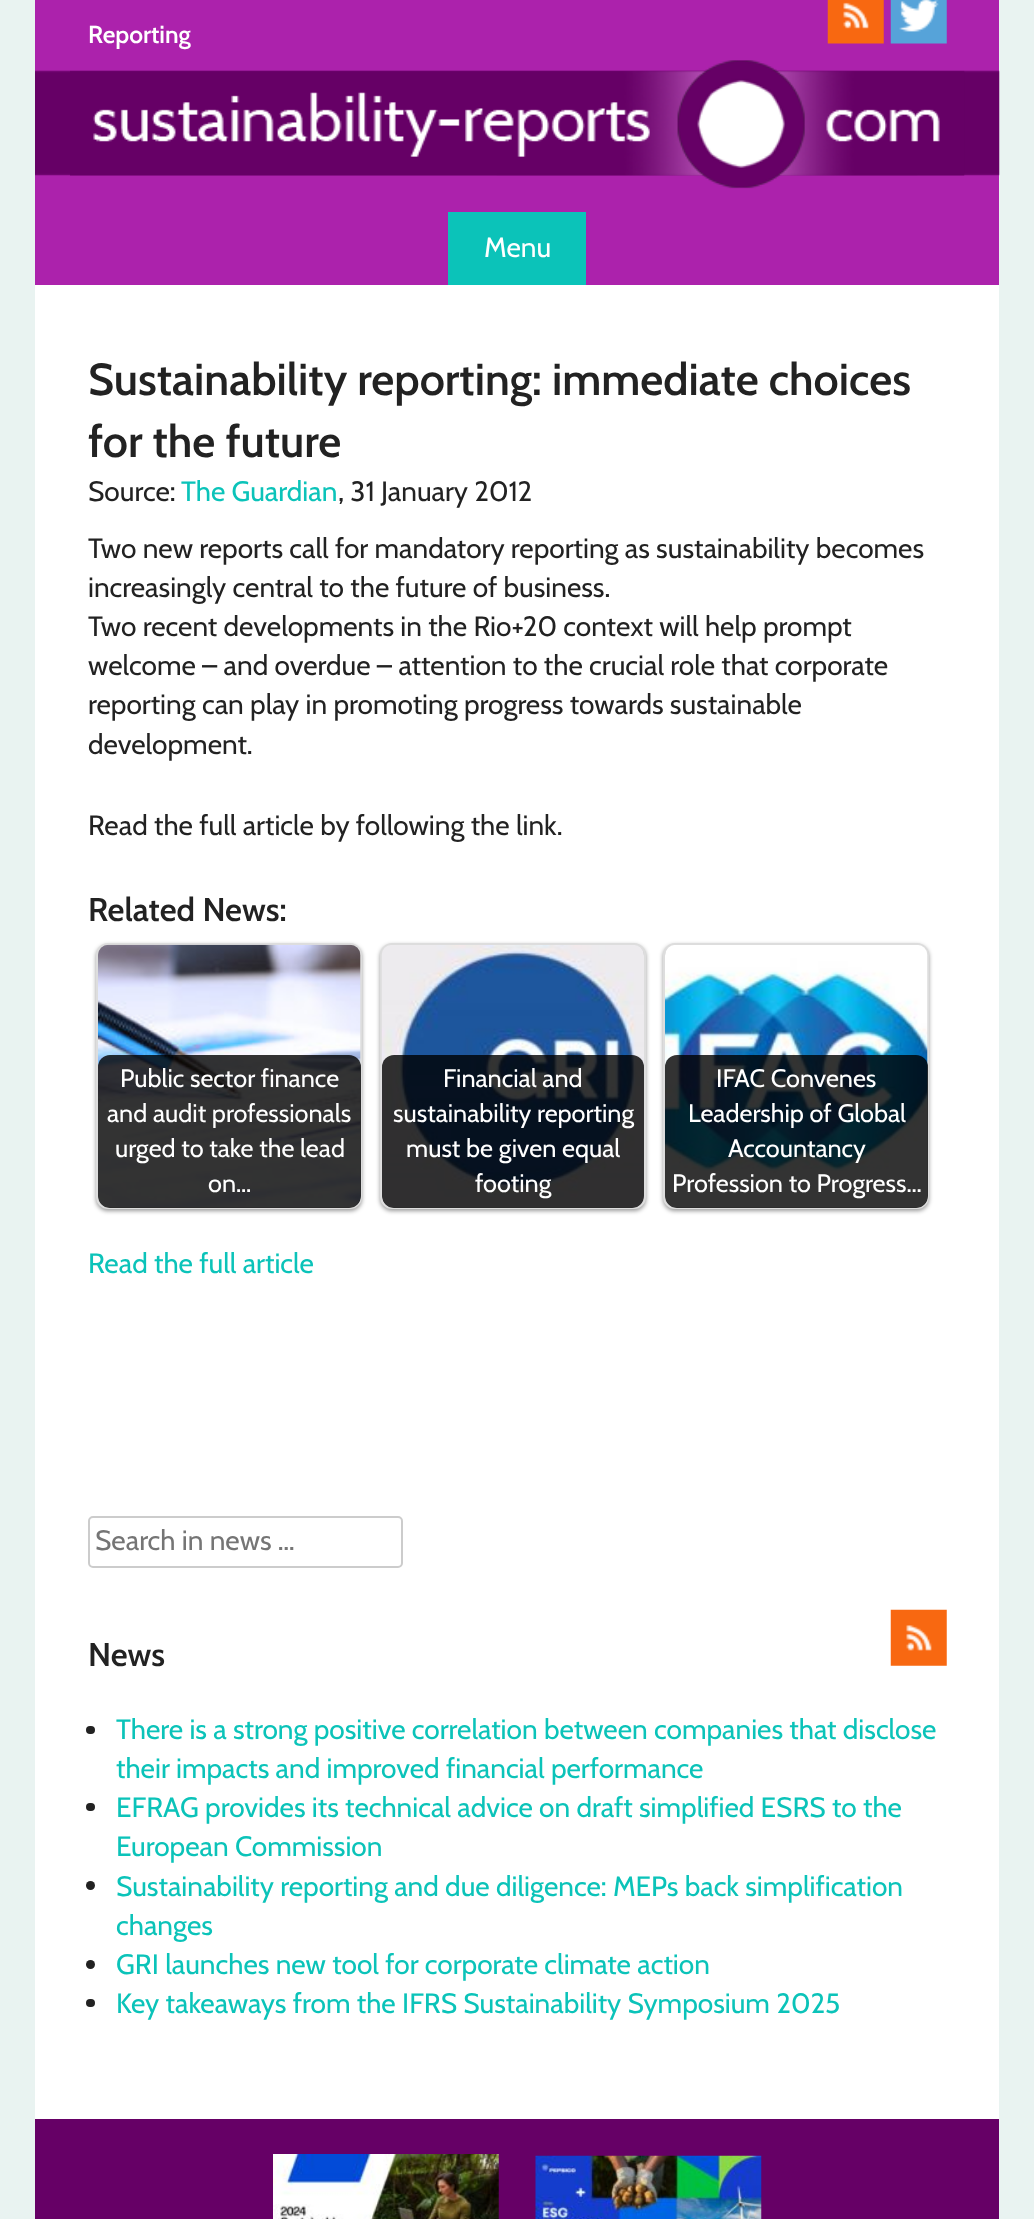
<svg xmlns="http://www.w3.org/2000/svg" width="1034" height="2219">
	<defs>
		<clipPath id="clip1"><rect x="98" y="945" width="263" height="263" rx="11" /></clipPath>
		<clipPath id="clip2"><rect x="382" y="945" width="262" height="263" rx="11" /></clipPath>
		<clipPath id="clip3"><rect x="665" y="945" width="263" height="263" rx="11" /></clipPath>
	</defs>
	<rect width="100%" height="100%" fill="#E9F3F1" />
	<rect x="35" y="285" width="964" height="1834" fill="#FFFFFF" />
	<rect x="35" y="0" width="964" height="285" fill="#AC22AC" />
	<text x="88" y="43" font-family="Cabin" font-size="24.5" font-weight="600" fill="#FFFFFF">Reporting</text>
	<image x="827" y="0" width="57" height="44" href="assets/img1.png" />
	<image x="890" y="0" width="57" height="44" href="assets/img2.png" />
	<image x="35" y="70" width="965" height="106" href="assets/img3.png" />
	<image x="70" y="60" width="895" height="129" href="assets/img4.png" />
	<rect x="448" y="212" width="138" height="73" fill="#0BC3B9" />
	<text x="484" y="257" font-family="Cabin" font-size="28" fill="#FFFFFF">Menu</text>
	<g font-family="Cabin" font-size="44.75" font-weight="600" fill="#222222">
		<text x="88" y="395">Sustainability reporting: immediate choices</text>
		<text x="88" y="457">for the future</text>
	</g>
	<text x="88" y="501" font-family="Cabin" font-size="28" fill="#222222">Source:</text>
	<text x="181" y="501" font-family="Cabin" font-size="28" fill="#0BC3B9">The Guardian</text>
	<g font-family="Cabin" font-size="28" fill="#222222">
		<text x="338" y="501">, 31 January 2012</text>
		<text x="88" y="558">Two new reports call for mandatory reporting as sustainability becomes</text>
		<text x="88" y="597">increasingly central to the future of business.</text>
		<text x="88" y="636">Two recent developments in the Rio+20 context will help prompt</text>
		<text x="88" y="675">welcome – and overdue – attention to the crucial role that corporate</text>
		<text x="88" y="714">reporting can play in promoting progress towards sustainable</text>
		<text x="88" y="754">development.</text>
		<text x="88" y="835">Read the full article by following the link.</text>
	</g>
	<text x="88" y="921" font-family="Cabin" font-size="32.75" font-weight="600" fill="#222222">Related News:</text>
	<rect x="96" y="945" width="266" height="266" rx="12" fill="#000000" fill-opacity="0.4" filter="blur(2px)" />
	<rect x="97" y="944" width="264" height="264" rx="11" fill="none" stroke="#DDDDDD" stroke-width="2" />
	<image x="98" y="944" width="263" height="263" href="assets/img5.png" />
	<g clip-path="url(#clip1)">
		<rect x="98" y="1055" width="263" height="153" rx="12" fill="#000000" fill-opacity="0.8" />
	</g>
	<g font-family="Cabin" font-size="25.25" fill="#FFFFFF">
		<text x="120" y="1087">Public sector finance</text>
		<text x="107" y="1122">and audit professionals</text>
		<text x="115" y="1157">urged to take the lead</text>
		<text x="208" y="1192">on…</text>
	</g>
	<rect x="380" y="945" width="266" height="266" rx="12" fill="#000000" fill-opacity="0.4" filter="blur(2px)" />
	<rect x="381" y="944" width="264" height="264" rx="11" fill="none" stroke="#DDDDDD" stroke-width="2" />
	<image x="381" y="945" width="263" height="262" href="assets/img6.png" />
	<g clip-path="url(#clip2)">
		<rect x="382" y="1055" width="262" height="153" rx="12" fill="#000000" fill-opacity="0.8" />
	</g>
	<g font-family="Cabin" font-size="25.25" fill="#FFFFFF">
		<text x="443" y="1087">Financial and</text>
		<text x="393" y="1122">sustainability reporting</text>
		<text x="406" y="1157">must be given equal</text>
		<text x="475" y="1192">footing</text>
	</g>
	<rect x="663" y="945" width="266" height="266" rx="12" fill="#000000" fill-opacity="0.4" filter="blur(2px)" />
	<rect x="664" y="944" width="264" height="264" rx="11" fill="none" stroke="#DDDDDD" stroke-width="2" />
	<image x="665" y="945" width="263" height="262" href="assets/img7.png" />
	<g clip-path="url(#clip3)">
		<rect x="665" y="1055" width="263" height="153" rx="12" fill="#000000" fill-opacity="0.8" />
	</g>
	<g font-family="Cabin" font-size="25.25" fill="#FFFFFF">
		<text x="716" y="1087">IFAC Convenes</text>
		<text x="688" y="1122">Leadership of Global</text>
		<text x="728" y="1157">Accountancy</text>
		<text x="672" y="1192">Profession to Progress…</text>
	</g>
	<text x="88" y="1273" font-family="Cabin" font-size="28" fill="#0BC3B9">Read the full article</text>
	<rect x="89" y="1517" width="313" height="50" rx="4" fill="none" stroke="#CCCCCC" stroke-width="2" />
	<text x="95" y="1550" font-family="Cabin" font-size="28" fill="#757575">Search in news …</text>
	<image x="890" y="1609" width="57" height="57" href="assets/img8.png" />
	<text x="88" y="1666" font-family="Cabin" font-size="32.75" font-weight="600" fill="#222222">News</text>
	<rect x="86" y="1726" width="9" height="8" rx="4" fill="#222222" />
	<g font-family="Cabin" font-size="28" fill="#0BC3B9">
		<text x="116" y="1739">There is a strong positive correlation between companies that disclose</text>
		<text x="116" y="1778">their impacts and improved financial performance</text>
	</g>
	<rect x="86" y="1803" width="9" height="8" rx="4" fill="#222222" />
	<g font-family="Cabin" font-size="28" fill="#0BC3B9">
		<text x="116" y="1817">EFRAG provides its technical advice on draft simplified ESRS to the</text>
		<text x="116" y="1856">European Commission</text>
	</g>
	<circle cx="90.5" cy="1885.5" r="4.5" fill="#222222" />
	<g font-family="Cabin" font-size="28" fill="#0BC3B9">
		<text x="116" y="1896">Sustainability reporting and due diligence: MEPs back simplification</text>
		<text x="116" y="1935">changes</text>
	</g>
	<circle cx="90.5" cy="1964.5" r="4.5" fill="#222222" />
	<text x="116" y="1974" font-family="Cabin" font-size="28" fill="#0BC3B9">GRI launches new tool for corporate climate action</text>
	<rect x="86" y="1999" width="9" height="8" rx="4" fill="#222222" />
	<text x="116" y="2013" font-family="Cabin" font-size="28" fill="#0BC3B9">Key takeaways from the IFRS Sustainability Symposium 2025</text>
	<rect x="35" y="2119" width="964" height="100" fill="#660066" />
	<image x="273" y="2154" width="226" height="65" href="assets/img9.png" />
	<image x="535" y="2155" width="227" height="64" href="assets/img10.png" />
</svg>
